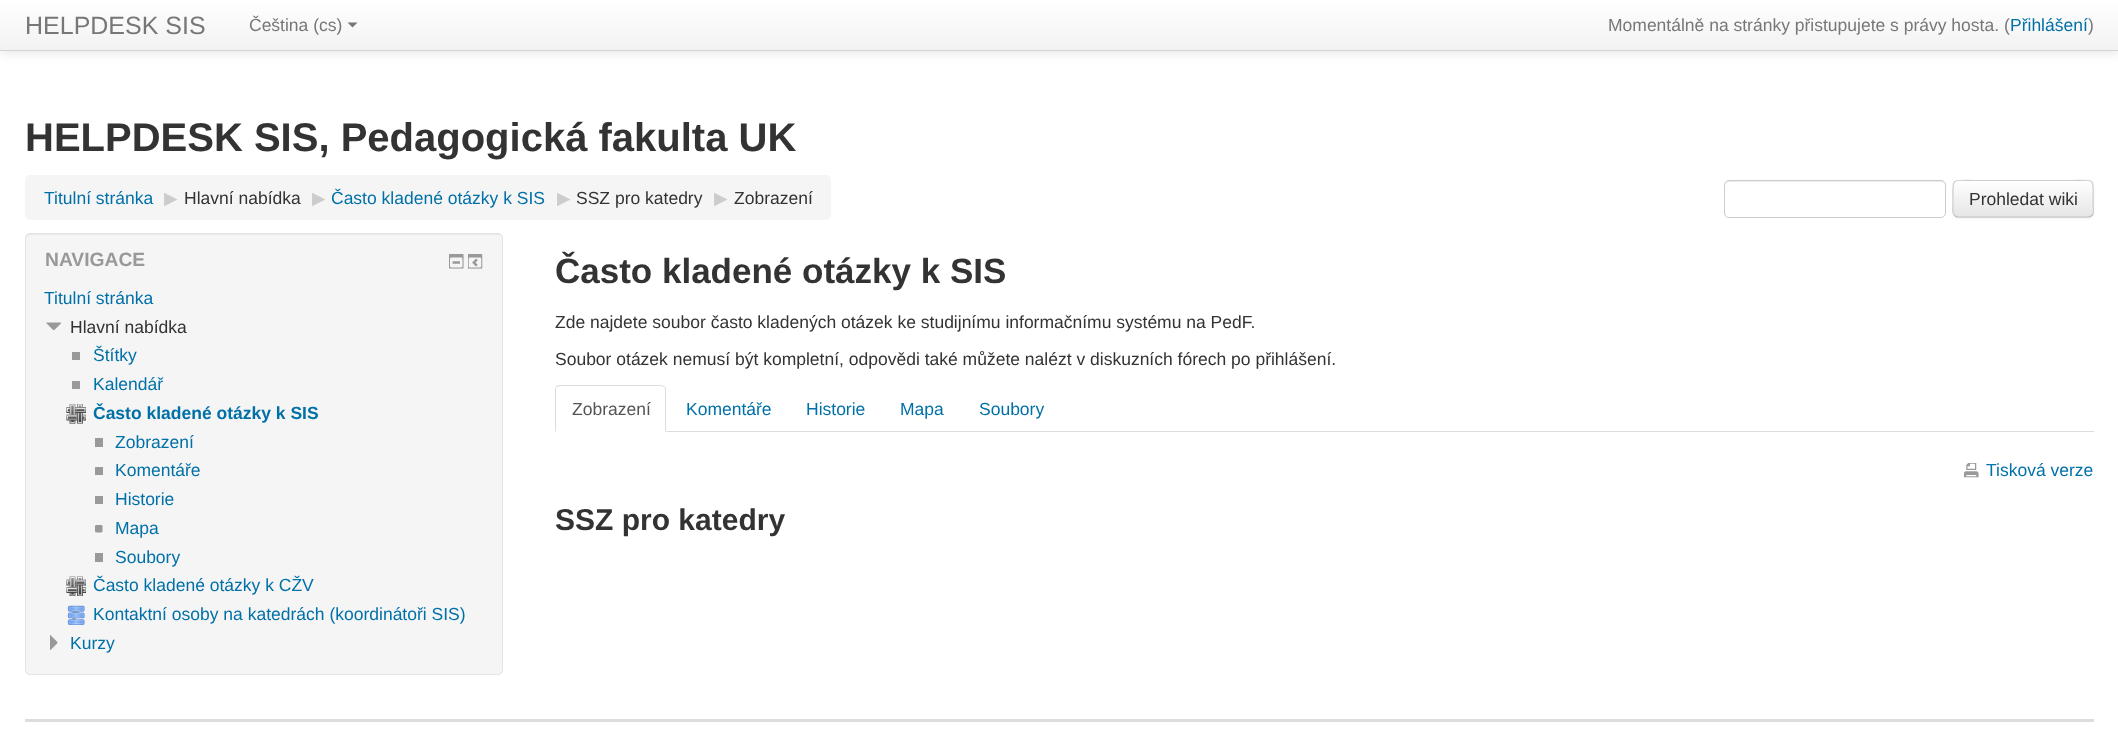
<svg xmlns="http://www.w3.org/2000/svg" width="2118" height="730">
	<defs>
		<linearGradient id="g1" gradientUnits="userSpaceOnUse" x1="1059" y1="0" x2="1059" y2="50"><stop offset="0" stop-color="#FFFFFF" /><stop offset="1" stop-color="#F2F2F2" /></linearGradient>
		<clipPath id="clip1"><rect x="1953" y="180" width="141" height="38" rx="5" /></clipPath>
		<linearGradient id="g2" gradientUnits="userSpaceOnUse" x1="2023" y1="181" x2="2023" y2="216"><stop offset="0" stop-color="#FFFFFF" /><stop offset="1" stop-color="#E6E6E6" /></linearGradient>
	</defs>
	<rect width="100%" height="100%" fill="#FFFFFF" />
	<rect x="0" y="1" width="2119" height="52" fill="#000000" fill-opacity="0.1" filter="blur(6px)" />
	<rect x="0" y="0" width="2118" height="50" fill="url(#g1)" />
	<rect x="0" y="50" width="2118" height="1" fill="#D4D4D4" />
	<text x="25" y="34" font-family="Liberation Sans" font-size="25" fill="#777777">HELPDESK SIS</text>
	<text x="249" y="31" font-family="Liberation Sans" font-size="17.5" fill="#777777">Čeština (cs)</text>
	<path d="M347.5 22.5H357.5L352.5 27.5Z" fill="#777777" />
	<text x="1608" y="31" font-family="Liberation Sans" font-size="17.5" fill="#777777">Momentálně na stránky přistupujete s právy hosta. (</text>
	<text x="2010" y="31" font-family="Liberation Sans" font-size="17.5" fill="#0070A8">Přihlášení</text>
	<text x="2088" y="31" font-family="Liberation Sans" font-size="17.5" fill="#777777">)</text>
	<text x="25" y="151" font-family="Liberation Sans" font-size="40" font-weight="700" fill="#333333">HELPDESK SIS, Pedagogická fakulta UK</text>
	<rect x="25" y="175" width="806" height="45" rx="5" fill="#F5F5F5" />
	<text x="44" y="204" font-family="Liberation Sans" font-size="17.5" fill="#0070A8">Titulní stránka</text>
	<text x="164" y="204" font-family="DejaVu Sans" font-size="17.5" fill="#CCCCCC">▶︎</text>
	<text x="184" y="204" font-family="Liberation Sans" font-size="17.5" fill="#333333">Hlavní nabídka</text>
	<text x="312" y="204" font-family="DejaVu Sans" font-size="17.5" fill="#CCCCCC">▶︎</text>
	<text x="331" y="204" font-family="Liberation Sans" font-size="17.5" fill="#0070A8">Často kladené otázky k SIS</text>
	<text x="557" y="204" font-family="DejaVu Sans" font-size="17.5" fill="#CCCCCC">▶︎</text>
	<text x="576" y="204" font-family="Liberation Sans" font-size="17.5" fill="#333333">SSZ pro katedry</text>
	<text x="714" y="204" font-family="DejaVu Sans" font-size="17.5" fill="#CCCCCC">▶︎</text>
	<text x="734" y="204" font-family="Liberation Sans" font-size="17.5" fill="#333333">Zobrazení</text>
	<path d="M1729 182H1941C1943 182 1945 184 1945 186C1945 183 1944 181 1941 181H1727C1725 182 1725 184 1725 186C1725 184 1727 182 1729 182Z" fill="#ECECEC" />
	<rect x="1724.5" y="180.5" width="221" height="37" rx="4.5" fill="none" stroke="#CCCCCC" />
	<rect x="1953" y="181" width="141" height="38" rx="5" fill="#000000" fill-opacity="0.05" filter="blur(1px)" />
	<rect x="1953" y="180" width="141" height="38" rx="5" fill="#F5F5F5" />
	<g clip-path="url(#clip1)">
		<rect x="1953" y="181" width="141" height="35" fill="url(#g2)" />
	</g>
	<path d="M1958 182H2089C2094 182 2092 193 2092 195V215C2093 214 2093 213 2093 212V185C2093 183 2091 181 2089 181H1958C1956 181 1954 183 1954 185V186C1954 184 1955 182 1958 182Z" fill="#FFFFFF" fill-opacity="0.2" />
	<path d="M2092 215.5L2089 217H1957L1954.5 215.5" fill="none" stroke="#B3B3B3" stroke-width="1.2" />
	<path d="M1954.5 215.5C1951.5 213 1953 206.5 1953 203.5C1953 175.5 1949 180.5 1979.5 180.5H2067C2097.5 180.5 2093 175.5 2093 203.5C2093 206.5 2094.5 213 2092 215.5" fill="none" stroke="#CCCCCC" stroke-width="1.2" />
	<text x="1969" y="205" font-family="Liberation Sans" font-size="17.5" fill="#333333">Prohledat wiki</text>
	<rect x="25" y="233" width="478" height="442" rx="5" fill="#F5F5F5" />
	<path d="M30 235H498C500 235 501 237 501 239C501 236 500 234 497 234H30C27 234 26 236 26 239C26 237 28 235 30 235Z" fill="#E9E9E9" />
	<rect x="25.5" y="233.5" width="477" height="441" rx="4.5" fill="none" stroke="#E3E3E3" />
	<text x="45" y="266" font-family="Liberation Sans" font-size="19.25" font-weight="700" fill="#999999">NAVIGACE</text>
	<image x="449" y="254" width="15" height="15" href="assets/img1.png" />
	<image x="468" y="254" width="15" height="15" href="assets/img2.png" />
	<text x="44" y="304" font-family="Liberation Sans" font-size="17.5" fill="#0070A8">Titulní stránka</text>
	<image x="46" y="322" width="15" height="8" href="assets/img3.png" />
	<text x="70" y="333" font-family="Liberation Sans" font-size="17.5" fill="#333333">Hlavní nabídka</text>
	<text x="93" y="361" font-family="Liberation Sans" font-size="17.5" fill="#0070A8">Štítky</text>
	<rect x="72" y="352" width="8" height="8" fill="#999999" />
	<text x="93" y="390" font-family="Liberation Sans" font-size="17.5" fill="#0070A8">Kalendář</text>
	<rect x="72" y="381" width="8" height="8" fill="#999999" />
	<image x="75" y="408" width="3" height="9" href="assets/img4.png" />
	<image x="66" y="404" width="20" height="20" href="assets/img5.png" />
	<text x="93" y="419" font-family="Liberation Sans" font-size="17.5" font-weight="700" fill="#0070A8">Často kladené otázky k SIS</text>
	<text x="115" y="448" font-family="Liberation Sans" font-size="17.5" fill="#0070A8">Zobrazení</text>
	<rect x="95" y="438" width="8" height="9" fill="#999999" />
	<text x="115" y="476" font-family="Liberation Sans" font-size="17.5" fill="#0070A8">Komentáře</text>
	<rect x="95" y="467" width="8" height="8" fill="#999999" />
	<text x="115" y="505" font-family="Liberation Sans" font-size="17.5" fill="#0070A8">Historie</text>
	<rect x="95" y="496" width="8" height="8" fill="#999999" />
	<image x="94" y="525" width="9" height="8" href="assets/img6.png" />
	<g font-family="Liberation Sans" font-size="17.5" fill="#0070A8">
		<text x="115" y="534">Mapa</text>
		<text x="115" y="563">Soubory</text>
	</g>
	<rect x="95" y="553" width="8" height="9" fill="#999999" />
	<image x="75" y="579" width="3" height="10" href="assets/img7.png" />
	<image x="66" y="576" width="20" height="20" href="assets/img8.png" />
	<text x="93" y="591" font-family="Liberation Sans" font-size="17.5" fill="#0070A8">Často kladené otázky k CŽV</text>
	<image x="72" y="611" width="8" height="9" href="assets/img9.png" />
	<image x="67" y="605" width="18" height="20" href="assets/img10.png" />
	<text x="93" y="620" font-family="Liberation Sans" font-size="17.5" fill="#0070A8">Kontaktní osoby na katedrách (koordinátoři SIS)</text>
	<image x="50" y="635" width="8" height="15" href="assets/img11.png" />
	<text x="70" y="649" font-family="Liberation Sans" font-size="17.5" fill="#0070A8">Kurzy</text>
	<text x="555" y="283" font-family="Liberation Sans" font-size="35" font-weight="700" fill="#333333">Často kladené otázky k SIS</text>
	<g font-family="Liberation Sans" font-size="17.5" fill="#333333">
		<text x="555" y="328">Zde najdete soubor často kladených otázek ke studijnímu informačnímu systému na PedF.</text>
		<text x="555" y="365">Soubor otázek nemusí být kompletní, odpovědi také můžete nalézt v diskuzních fórech po přihlášení.</text>
	</g>
	<rect x="666" y="431" width="1428" height="1" fill="#DDDDDD" />
	<path d="M560 385C558 385 557 386 556 386L557 387L560 386H661L664 387H665C664 386 663 385 661 385Z" fill="#DDDDDD" />
	<path d="M665 387C666 387 666 389 666 390V432L665 431V390C665 389 665 388 664 387Z" fill="#DDDDDD" />
	<path d="M555 390V432L556 431V390C556 389 556 388 557 387L556 386C556 387 555 388 555 390Z" fill="#DDDDDD" />
	<text x="572" y="415" font-family="Liberation Sans" font-size="17.5" fill="#555555">Zobrazení</text>
	<g font-family="Liberation Sans" font-size="17.5" fill="#0070A8">
		<text x="686" y="415">Komentáře</text>
		<text x="806" y="415">Historie</text>
		<text x="900" y="415">Mapa</text>
		<text x="979" y="415">Soubory</text>
	</g>
	<image x="1964" y="463" width="15" height="15" href="assets/img12.png" />
	<text x="1986" y="476" font-family="Liberation Sans" font-size="17.5" fill="#0070A8">Tisková verze</text>
	<text x="555" y="530" font-family="Liberation Sans" font-size="30" font-weight="700" fill="#333333">SSZ pro katedry</text>
	<rect x="25" y="719" width="2069" height="3" fill="#DDDDDD" />
</svg>
